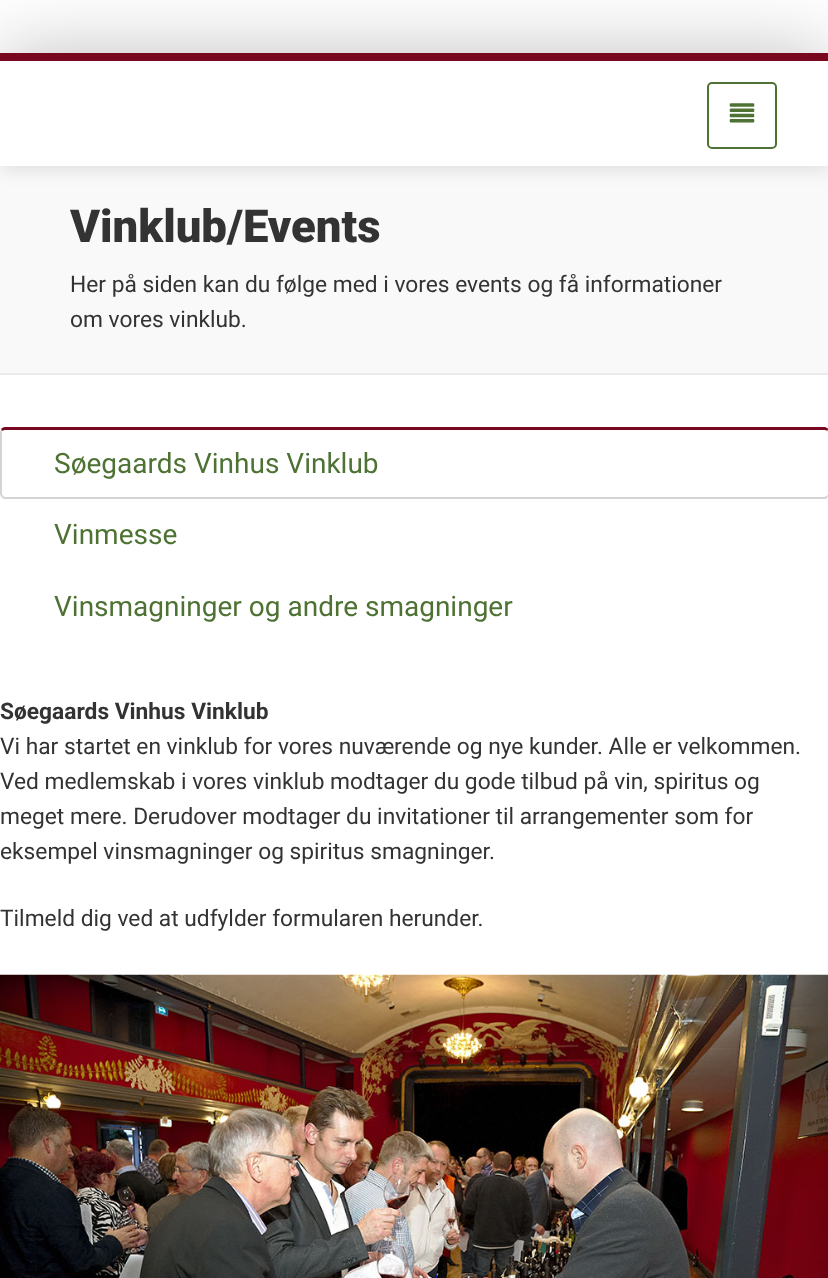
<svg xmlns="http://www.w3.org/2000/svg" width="828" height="1278">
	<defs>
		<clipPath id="clip1"><rect x="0" y="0" width="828" height="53" /></clipPath>
		<clipPath id="clip2"><rect x="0" y="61" width="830" height="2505" /></clipPath>
	</defs>
	<rect width="100%" height="100%" fill="#FFFFFF" />
	<g clip-path="url(#clip1)">
		<rect x="0" y="53" width="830" height="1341" fill="#000000" fill-opacity="0.25" filter="blur(38.5px)" />
	</g>
	<rect x="0" y="53" width="828" height="8" fill="#7A0720" />
	<rect x="0" y="166" width="828" height="207" fill="#F9F9F9" />
	<g clip-path="url(#clip2)">
		<rect x="0" y="65" width="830" height="105" fill="#000000" fill-opacity="0.1" filter="blur(9px)" />
	</g>
	<rect x="0" y="61" width="828" height="105" fill="#FFFFFF" />
	<rect x="708" y="83" width="68" height="65" rx="4" fill="none" stroke="#4D7233" stroke-width="2" />
	<image x="729" y="103" width="26" height="20" href="assets/img1.png" />
	<rect x="0" y="373" width="828" height="2" fill="#EBEBEB" />
	<text x="70" y="242" font-family="Roboto" font-size="45.5" font-weight="900" fill="#333333">Vinklub/Events</text>
	<g font-family="Roboto" font-size="22.75" fill="#333333">
		<text x="70" y="292">Her på siden kan du følge med i vores events og få informationer</text>
		<text x="70" y="327">om vores vinklub.</text>
	</g>
	<path d="M5 427C3 427 2 428 1 429L2 431C3 431 3 430 5 430H824C825 430 827 430 827 431L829 429C827 428 826 427 824 427Z" fill="#7A0720" />
	<path d="M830 496L828 497L827 496L828 494V442C828 439 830 434 827 431L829 429L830 430Z" fill="#D4D4D4" />
	<path d="M4 499L1 497L3 496L5 497H824L827 496L828 497L826 499Z" fill="#D4D4D4" />
	<path d="M0 432V494C0 495 1 496 1 497L3 496L2 494V431L1 429Z" fill="#D4D4D4" />
	<g font-family="Roboto" font-size="28" fill="#4D7233">
		<text x="54" y="473">Søegaards Vinhus Vinklub</text>
		<text x="54" y="544">Vinmesse</text>
		<text x="54" y="616">Vinsmagninger og andre smagninger</text>
	</g>
	<text x="0" y="719" font-family="Roboto" font-size="22.75" font-weight="700" fill="#333333">Søegaards Vinhus Vinklub</text>
	<g font-family="Roboto" font-size="22.75" fill="#333333">
		<text x="0" y="754">Vi har startet en vinklub for vores nuværende og nye kunder. Alle er velkommen.</text>
		<text x="0" y="789">Ved medlemskab i vores vinklub modtager du gode tilbud på vin, spiritus og</text>
		<text x="0" y="824">meget mere. Derudover modtager du invitationer til arrangementer som for</text>
		<text x="0" y="859">eksempel vinsmagninger og spiritus smagninger.</text>
		<text x="0" y="926">Tilmeld dig ved at udfylder formularen herunder.</text>
	</g>
	<image x="0" y="974" width="828" height="304" href="assets/img2.png" />
</svg>
